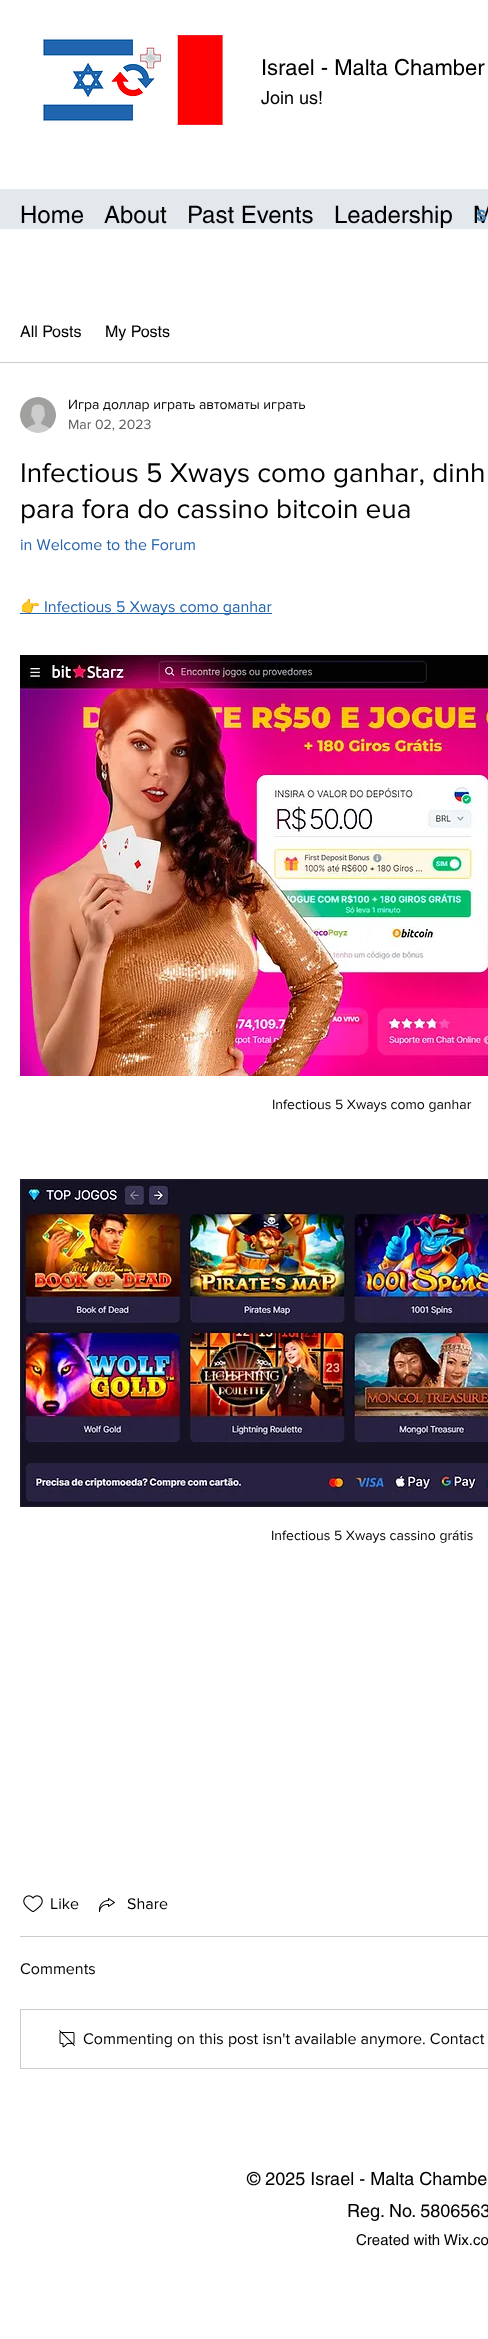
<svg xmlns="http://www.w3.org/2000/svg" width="488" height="2339">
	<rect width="100%" height="100%" fill="#FFFFFF" />
	<image x="43" y="35" width="180" height="90" href="assets/img1.png" />
	<text x="261" y="75" font-family="helvetica" font-size="22" fill="#000000">Israel - Malta Chamber</text>
	<text x="261" y="104" font-family="helvetica" font-size="18" fill="#000000">Join us!</text>
	<rect x="0" y="189" width="488" height="40" fill="#E3E8ED" />
	<g font-family="helvetica" font-size="24" fill="#000000">
		<text x="20" y="223">Home</text>
		<text x="104" y="223">About</text>
		<text x="187" y="223">Past Events</text>
		<text x="334" y="223">Leadership</text>
		<text x="473" y="223">M</text>
	</g>
	<text x="476" y="221" font-family="helvetica" font-size="20" font-weight="700" fill="#4682B4">s</text>
	<rect x="0" y="362" width="488" height="1" fill="#CCCCCC" />
	<g font-family="helvetica" font-size="16" fill="#000000">
		<text x="20" y="337">All Posts</text>
		<text x="105" y="337">My Posts</text>
	</g>
	<image x="20" y="397" width="36" height="36" href="assets/img2.png" />
	<text x="68" y="409" font-family="'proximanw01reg'" font-size="14" fill="#000000">Игра доллар играть автоматы играть</text>
	<text x="68" y="429" font-family="'proximanw01reg'" font-size="14" fill="#5C5C5C">Mar 02, 2023</text>
	<g font-family="'proximanw01reg'" font-size="28" fill="#000000">
		<text x="20" y="482">Infectious 5 Xways como ganhar, dinh</text>
		<text x="20" y="518">para fora do cassino bitcoin eua</text>
	</g>
	<text x="20" y="550" font-family="'proximanw01reg'" font-size="16" fill="#2364AC">in Welcome to the Forum</text>
	<rect x="20" y="613" width="252" height="1" fill="#2364AC" />
	<text x="20" y="612" font-family="Noto Color Emoji" font-size="16" fill="#2364AC">👉</text>
	<text x="44" y="612" font-family="'proximanw01reg'" font-size="16" fill="#2364AC">Infectious 5 Xways como ganhar</text>
	<image x="20" y="655" width="468" height="421" href="assets/img3.png" />
	<text x="272" y="1109" font-family="'proximanw01reg'" font-size="14" fill="#000000">Infectious 5 Xways como ganhar</text>
	<image x="20" y="1179" width="468" height="328" href="assets/img4.png" />
	<text x="271" y="1540" font-family="'proximanw01reg'" font-size="14" fill="#000000">Infectious 5 Xways cassino grátis</text>
	<image x="23" y="1895" width="20" height="18" href="assets/img5.png" />
	<text x="50" y="1909" font-family="'proximanw01reg'" font-size="16" fill="#000000">Like</text>
	<image x="99" y="1898" width="16" height="14" href="assets/img6.png" />
	<text x="127" y="1909" font-family="'proximanw01reg'" font-size="16" fill="#000000">Share</text>
	<rect x="20" y="1936" width="468" height="1" fill="#CCCCCC" />
	<text x="20" y="1974" font-family="'proximanw01reg'" font-size="16" fill="#000000">Comments</text>
	<rect x="20.5" y="2009.5" width="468" height="59" fill="none" stroke="#CCCCCC" />
	<image x="59" y="2030" width="16" height="18" href="assets/img7.png" />
	<text x="83" y="2044" font-family="'proximanw01reg'" font-size="16" fill="#000000">Commenting on this post isn't available anymore. Contact</text>
	<g font-family="helvetica" font-size="18" fill="#000000">
		<text x="247" y="2185">© 2025 Israel - Malta Chambe</text>
		<text x="347" y="2217">Reg. No. 5806563</text>
	</g>
	<text x="356" y="2245" font-family="helvetica" font-size="15" fill="#000000">Created with Wix.co</text>
</svg>
